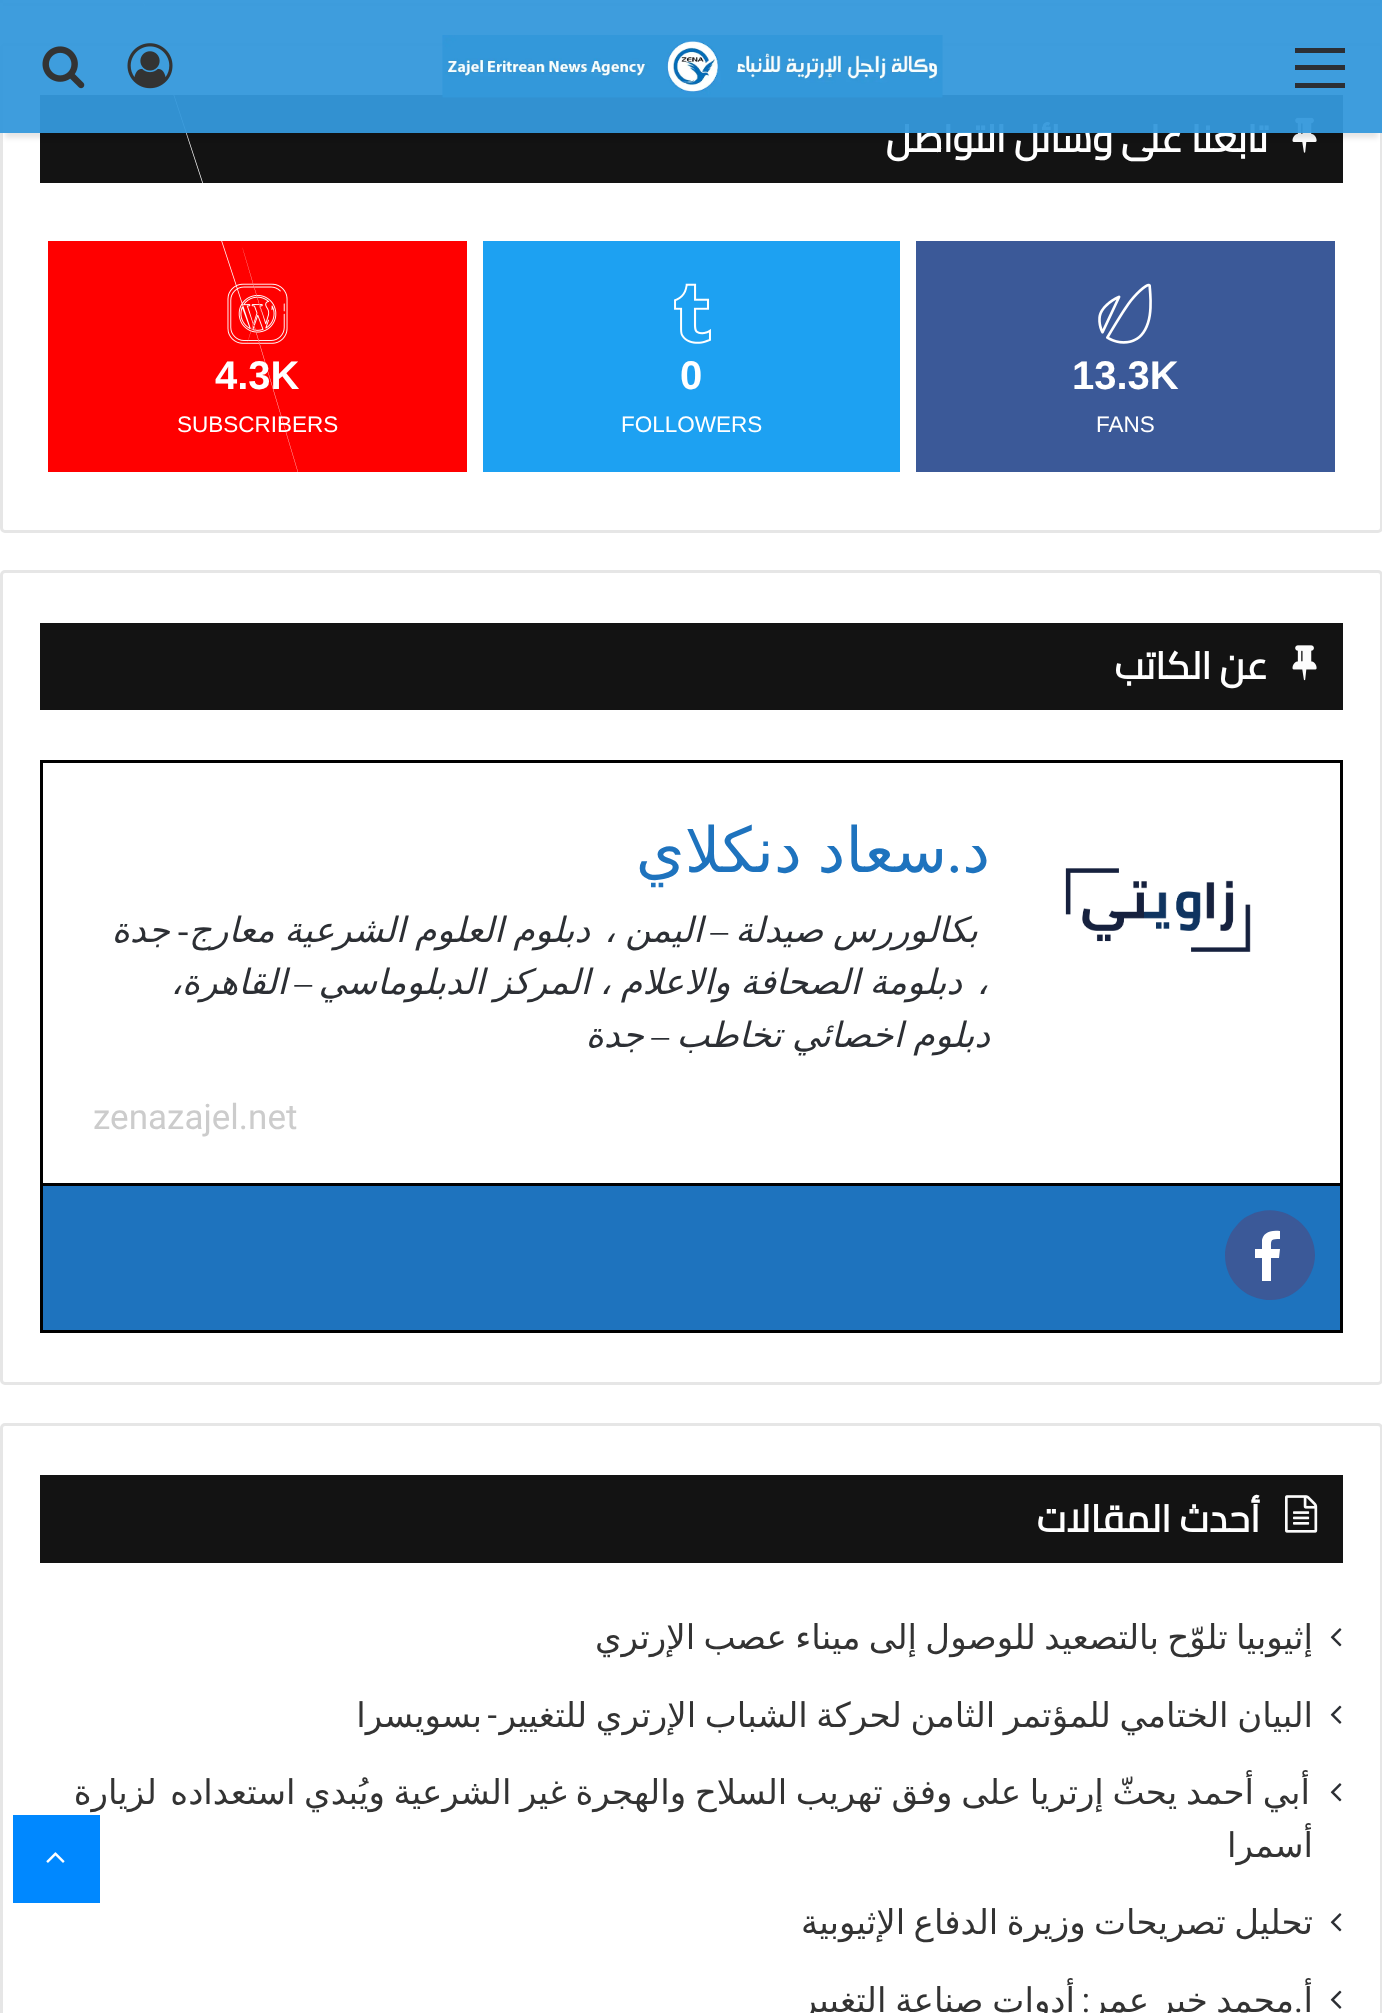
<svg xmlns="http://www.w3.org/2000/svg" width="1382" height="2013">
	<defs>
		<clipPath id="clip1"><path d="M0 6H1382V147H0ZM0 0H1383V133H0Z" clip-rule="evenodd" /></clipPath>
	</defs>
	<rect width="100%" height="100%" fill="#FFFFFF" />
	<rect x="1.5" y="44.5" width="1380" height="487" rx="3.5" fill="none" stroke="#E6E6E6" stroke-width="3" />
	<rect x="40" y="95" width="1303" height="88" fill="#131313" />
	<image x="1292" y="117" width="25" height="36" href="assets/img4.png" />
	<rect x="3" y="3" width="1377" height="3" fill="#E6E6E6" />
	<rect x="48" y="241" width="419" height="231" fill="#FF0000" />
	<image x="143" y="3" width="155" height="469" href="assets/img7.png" />
	<g clip-path="url(#clip1)">
		<rect x="5" y="15" width="1373" height="123" fill="#000000" fill-opacity="0.1" filter="blur(2.5px)" />
	</g>
	<rect x="1380" y="0" width="2" height="3" fill="#E6E6E6" />
	<rect x="0" y="0" width="3" height="3" fill="#E6E6E6" />
	<text x="1268" y="152" font-family="Cairo" font-size="37.5" font-weight="700" direction="rtl" fill="#FFFFFF">تابعنا على وسائل التواصل</text>
	<rect x="0" y="0" width="1382" height="133" fill="#3498DB" fill-opacity="0.95" />
	<rect x="1295" y="65" width="50" height="5" fill="#2C2F34" />
	<rect x="1295" y="48" width="50" height="5" fill="#2C2F34" />
	<rect x="1295" y="83" width="50" height="5" fill="#2C2F34" />
	<image x="442" y="35" width="501" height="63" href="assets/img1.png" />
	<image x="127" y="43" width="46" height="46" href="assets/img2.png" />
	<image x="42" y="46" width="43" height="43" href="assets/img3.png" />
	<rect x="916" y="241" width="419" height="231" fill="#3B5998" />
	<image x="1098" y="283" width="54" height="61" href="assets/img5.png" />
	<text x="1072" y="389" font-family="Liberation Sans" font-size="40" font-weight="700" fill="#FFFFFF">13.3K</text>
	<text x="1096" y="432" font-family="Liberation Sans" font-size="22.5" fill="#FFFFFF">FANS</text>
	<rect x="483" y="241" width="417" height="231" fill="#1DA1F2" />
	<image x="674" y="283" width="37" height="61" href="assets/img6.png" />
	<text x="680" y="389" font-family="Liberation Sans" font-size="40" font-weight="700" fill="#FFFFFF">0</text>
	<text x="621" y="432" font-family="Liberation Sans" font-size="22.5" fill="#FFFFFF">FOLLOWERS</text>
	<text x="215" y="389" font-family="Liberation Sans" font-size="40" font-weight="700" fill="#FFFFFF">4.3K</text>
	<text x="177" y="432" font-family="Liberation Sans" font-size="22.5" fill="#FFFFFF">SUBSCRIBERS</text>
	<rect x="1.5" y="571.5" width="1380" height="812" rx="3.5" fill="none" stroke="#E6E6E6" stroke-width="3" />
	<rect x="40" y="623" width="1303" height="87" fill="#131313" />
	<image x="1292" y="645" width="25" height="36" href="assets/img8.png" />
	<text x="1268" y="679" font-family="Cairo" font-size="37.5" font-weight="700" direction="rtl" fill="#FFFFFF">عن الكاتب</text>
	<rect x="41.5" y="761.5" width="1300" height="570" fill="none" stroke="#000000" stroke-width="3" />
	<text x="990" y="872" font-family="DejaVu Sans" font-size="62.5" direction="rtl" fill="#1E73BE">د</text>
	<text x="962" y="872" font-family="Liberation Serif" font-size="62.5" direction="rtl" fill="#1E73BE">.</text>
	<text x="947" y="872" word-spacing="-4" font-family="DejaVu Sans" font-size="62.5" direction="rtl" fill="#1E73BE">سعاد دنكلاي</text>
	<image x="1065" y="868" width="186" height="84" href="assets/img9.png" />
	<text x="978" y="942" word-spacing="-1.5" font-family="DejaVu Sans" font-size="35" font-style="italic" direction="rtl" fill="#2C2F34">بكالوررس صيدلة</text>
	<text x="728" y="942" font-family="Liberation Serif" font-size="35" font-style="italic" direction="rtl" fill="#2C2F34">–</text>
	<g font-family="DejaVu Sans" font-size="35" font-style="italic" direction="rtl" fill="#2C2F34">
		<text x="703" y="942" word-spacing="-1.5">اليمن ،</text>
		<text x="590" y="942" word-spacing="-1.5">دبلوم العلوم الشرعية معارج</text>
	</g>
	<text x="189" y="942" font-family="Liberation Serif" font-size="35" font-style="italic" direction="rtl" fill="#2C2F34">-</text>
	<g font-family="DejaVu Sans" font-size="35" font-style="italic" direction="rtl" fill="#2C2F34">
		<text x="170" y="942">جدة</text>
		<text x="988" y="994">،</text>
		<text x="962" y="994" word-spacing="-1.5">دبلومة الصحافة والاعلام ، المركز الدبلوماسي</text>
	</g>
	<text x="312" y="994" font-family="Liberation Serif" font-size="35" font-style="italic" direction="rtl" fill="#2C2F34">–</text>
	<g font-family="DejaVu Sans" font-size="35" font-style="italic" direction="rtl" fill="#2C2F34">
		<text x="287" y="994">القاهرة،</text>
		<text x="990" y="1047" word-spacing="-1">دبلوم اخصائي تخاطب</text>
	</g>
	<text x="669" y="1047" font-family="Liberation Serif" font-size="35" font-style="italic" direction="rtl" fill="#2C2F34">–</text>
	<text x="644" y="1047" font-family="DejaVu Sans" font-size="35" font-style="italic" direction="rtl" fill="#2C2F34">جدة</text>
	<text x="93" y="1129" font-family="Roboto" font-size="35" fill="#CCCCCC">zenazajel.net</text>
	<rect x="43" y="1186" width="1297" height="144" fill="#1E73BE" />
	<rect x="43" y="1183" width="1297" height="3" fill="#000000" />
	<path d="M1315 1255C1315 1265 1311 1275 1305 1283C1279 1316 1225 1298 1225 1255C1225 1247 1228 1237 1233 1230C1239 1223 1241 1219 1250 1215C1280 1200 1315 1223 1315 1255Z" fill="#3B5998" />
	<path d="M1262 1281V1258H1255V1249H1262V1240C1264 1231 1273 1230 1280 1231V1239C1270 1239 1271 1240 1271 1249H1280L1279 1258H1271V1281" fill="#FFFFFF" />
	<rect x="1.5" y="1424.5" width="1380" height="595" rx="3.5" fill="none" stroke="#E6E6E6" stroke-width="3" />
	<rect x="40" y="1475" width="1303" height="88" fill="#131313" />
	<image x="1285" y="1495" width="33" height="38" href="assets/img10.png" />
	<text x="1260" y="1532" font-family="Cairo" font-size="37.5" font-weight="700" direction="rtl" fill="#FFFFFF">أحدث المقالات</text>
	<image x="1330" y="1628" width="12" height="19" href="assets/img11.png" />
	<text x="1313" y="1649" word-spacing="-2.5" font-family="DejaVu Sans" font-size="34.1" direction="rtl" fill="#333333">إثيوبيا تلوّح بالتصعيد للوصول إلى ميناء عصب الإرتري</text>
	<image x="1330" y="1705" width="12" height="19" href="assets/img12.png" />
	<text x="497" y="1727" font-family="Roboto" font-size="34.1" direction="rtl" fill="#333333">-</text>
	<g font-family="DejaVu Sans" font-size="34.1" direction="rtl" fill="#333333">
		<text x="1313" y="1727" word-spacing="-2.25">البيان الختامي للمؤتمر الثامن لحركة الشباب الإرتري للتغيير</text>
		<text x="482" y="1727">بسويسرا</text>
	</g>
	<image x="1330" y="1783" width="12" height="19" href="assets/img11.png" />
	<g font-family="DejaVu Sans" font-size="34.1" direction="rtl" fill="#333333">
		<text x="1310" y="1804" word-spacing="-2.25">أبي أحمد يحثّ إرتريا على وفق تهريب السلاح والهجرة غير الشرعية ويُبدي استعداده</text>
		<text x="157" y="1804">لزيارة</text>
		<text x="1313" y="1857">أسمرا</text>
	</g>
	<image x="1330" y="1913" width="12" height="19" href="assets/img11.png" />
	<text x="1313" y="1934" word-spacing="-2.5" font-family="DejaVu Sans" font-size="34.1" direction="rtl" fill="#333333">تحليل تصريحات وزيرة الدفاع الإثيوبية</text>
	<image x="1330" y="1990" width="12" height="19" href="assets/img12.png" />
	<text x="1313" y="2012" font-family="DejaVu Sans" font-size="34.1" direction="rtl" fill="#333333">أ</text>
	<text x="1303" y="2012" font-family="Roboto" font-size="34.1" direction="rtl" fill="#333333">.</text>
	<g font-family="DejaVu Sans" font-size="34.1" direction="rtl" fill="#333333">
		<text x="1294" y="2012" word-spacing="-2.5">محمد خير</text>
		<text x="1149" y="2012">عمر</text>
	</g>
	<text x="1090" y="2012" font-family="Roboto" font-size="34.1" direction="rtl" fill="#333333">:</text>
	<text x="1075" y="2012" word-spacing="-2" font-family="DejaVu Sans" font-size="34.1" direction="rtl" fill="#333333">أدوات صناعة التغيير</text>
	<rect x="13" y="1815" width="87" height="88" fill="#0088FF" />
	<image x="46" y="1852" width="19" height="11" href="assets/img13.png" />
</svg>
